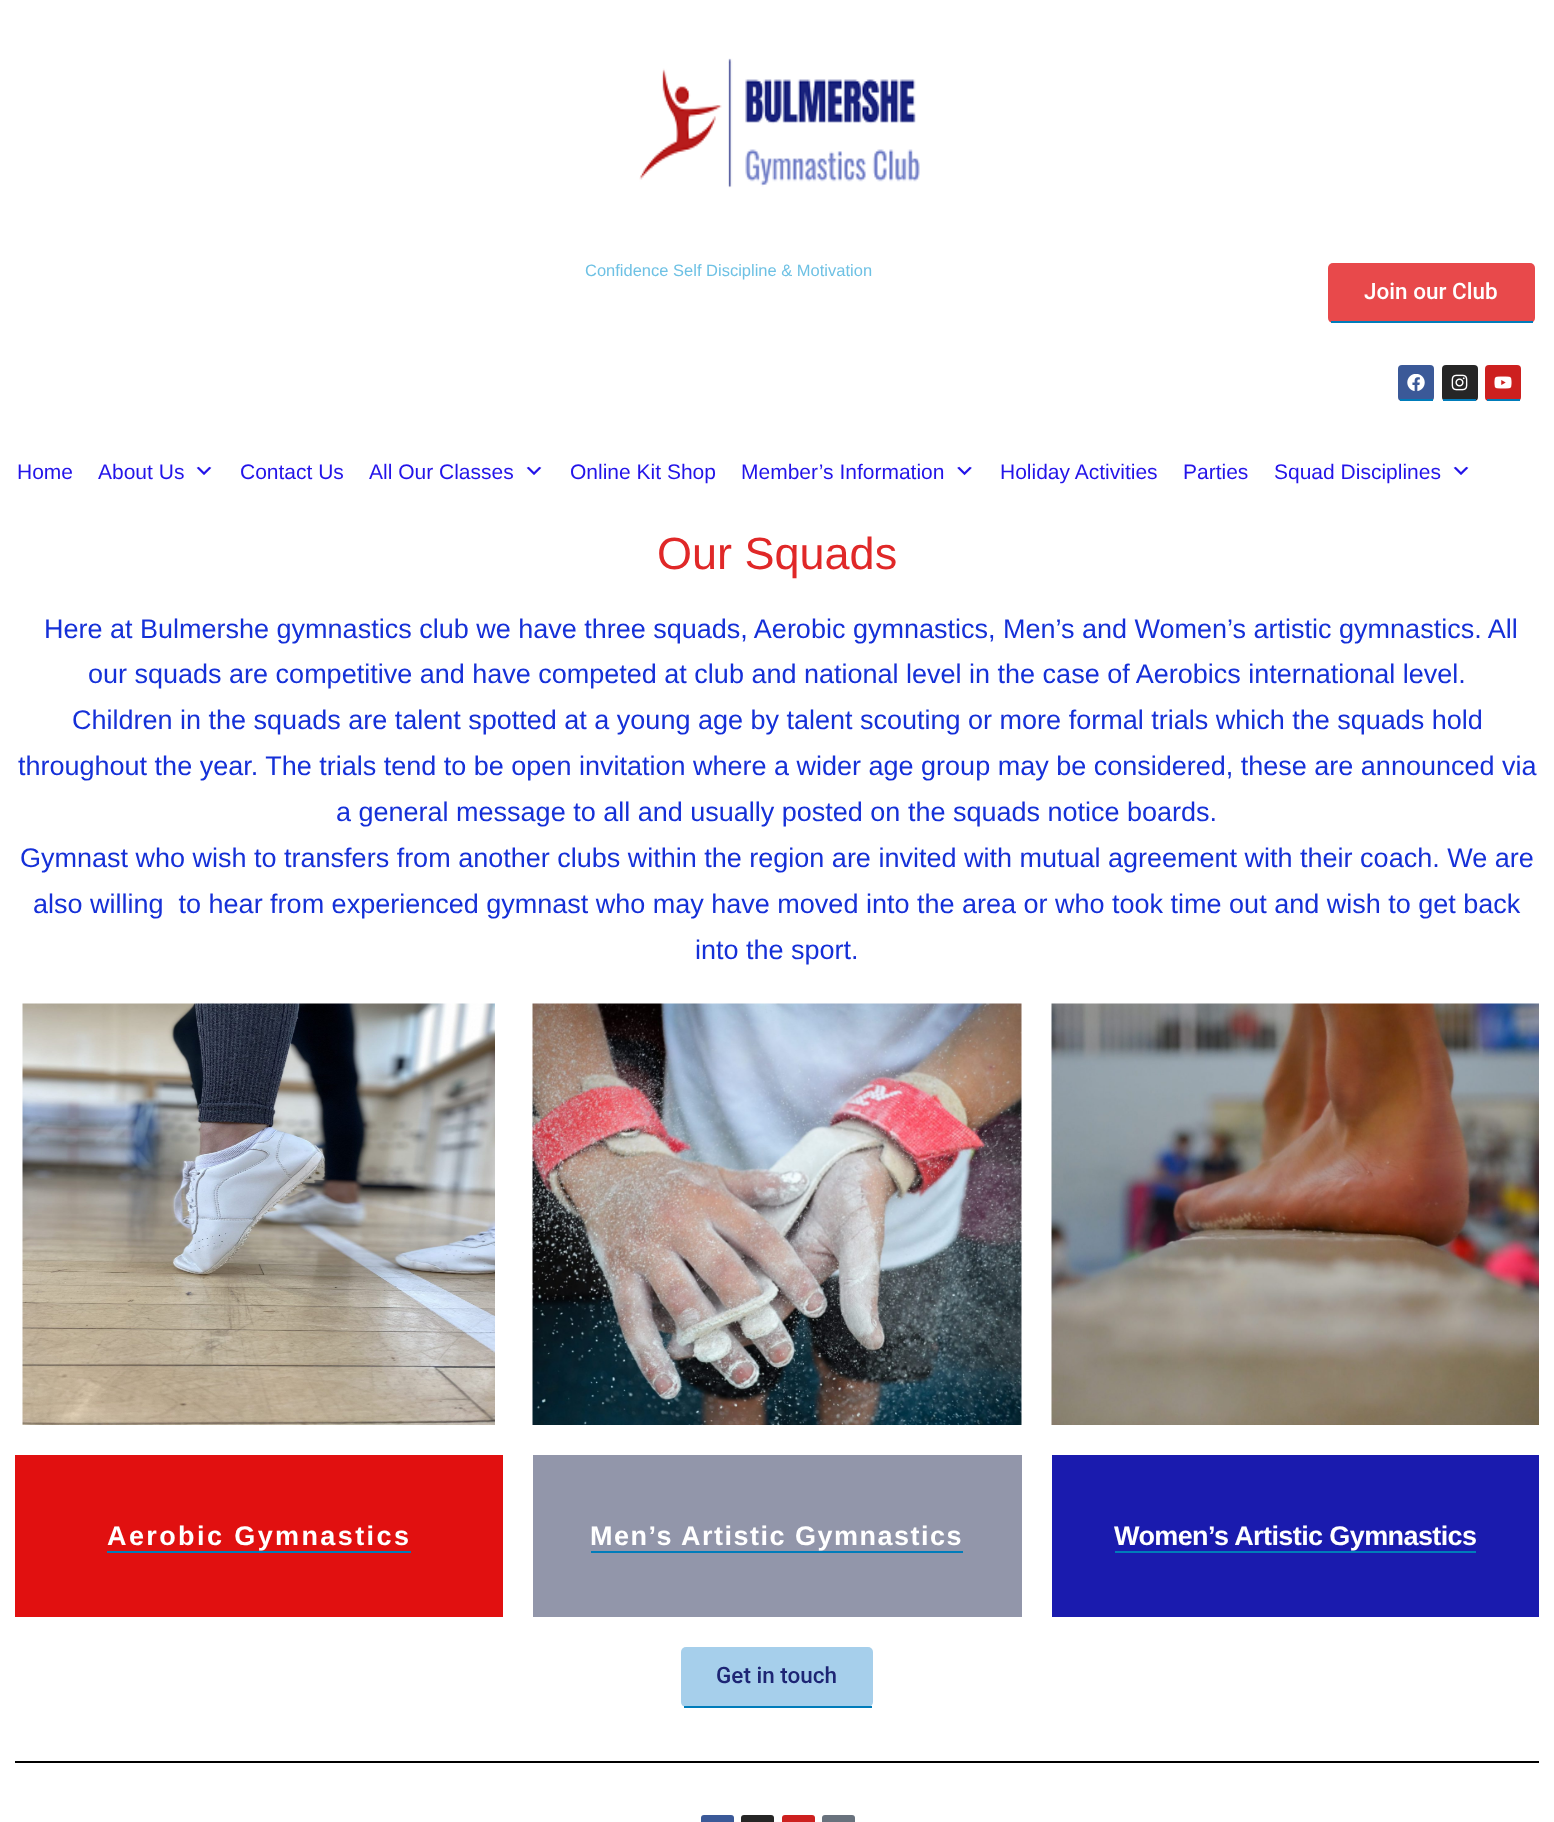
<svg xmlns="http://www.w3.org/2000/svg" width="1554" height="1822">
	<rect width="100%" height="100%" fill="#FFFFFF" />
	<image x="639" y="58" width="281" height="130" href="assets/img1.png" />
	<text x="585" y="276" font-family="Liberation Sans" font-size="16.5" fill="#6EC1E4">Confidence Self Discipline &amp; Motivation</text>
	<rect x="1328" y="263" width="207" height="60" rx="5" fill="#E8494B" />
	<rect x="1331" y="321" width="202" height="2" fill="#007CBA" />
	<text x="1364" y="299" font-family="Roboto" font-size="22.5" font-weight="500" fill="#FFFFFF">Join our Club</text>
	<rect x="1398" y="365" width="36" height="36" rx="4" fill="#3B5998" />
	<rect x="1400" y="399" width="33" height="2" fill="#007CBA" />
	<image x="1407" y="374" width="18" height="18" href="assets/img2.png" />
	<rect x="1442" y="365" width="36" height="36" rx="4" fill="#262626" />
	<rect x="1443" y="399" width="33" height="2" fill="#007CBA" />
	<image x="1451" y="374" width="17" height="17" href="assets/img3.png" />
	<rect x="1485" y="365" width="36" height="36" rx="4" fill="#CD201F" />
	<rect x="1487" y="399" width="33" height="2" fill="#007CBA" />
	<image x="1494" y="376" width="18" height="13" href="assets/img4.png" />
	<g font-family="Liberation Sans" font-size="21" fill="#2314E9">
		<text x="17" y="479">Home</text>
		<text x="98" y="479">About Us</text>
	</g>
	<image x="196" y="466" width="16" height="9" href="assets/img5.png" />
	<g font-family="Liberation Sans" font-size="21" fill="#2314E9">
		<text x="240" y="479">Contact Us</text>
		<text x="369" y="479">All Our Classes</text>
	</g>
	<image x="526" y="466" width="16" height="9" href="assets/img5.png" />
	<g font-family="Liberation Sans" font-size="21" fill="#2314E9">
		<text x="570" y="479">Online Kit Shop</text>
		<text x="741" y="479">Member’s Information</text>
	</g>
	<image x="957" y="466" width="15" height="10" href="assets/img6.png" />
	<g font-family="Liberation Sans" font-size="21" fill="#2314E9">
		<text x="1000" y="479">Holiday Activities</text>
		<text x="1183" y="479">Parties</text>
		<text x="1274" y="479">Squad Disciplines</text>
	</g>
	<image x="1453" y="466" width="16" height="9" href="assets/img5.png" />
	<text x="657" y="569" font-family="Liberation Sans" font-size="45" fill="#E02828">Our Squads</text>
	<g font-family="Liberation Sans" font-size="27" fill="#1530D8">
		<text x="44" y="638">Here at Bulmershe gymnastics club we have three squads, Aerobic gymnastics, Men’s and Women’s artistic gymnastics. All</text>
		<text x="88" y="683">our squads are competitive and have competed at club and national level in the case of Aerobics international level.</text>
		<text x="72" y="729">Children in the squads are talent spotted at a young age by talent scouting or more formal trials which the squads hold</text>
		<text x="18" y="775">throughout the year. The trials tend to be open invitation where a wider age group may be considered, these are announced via</text>
		<text x="336" y="821">a general message to all and usually posted on the squads notice boards.</text>
		<text x="20" y="867">Gymnast who wish to transfers from another clubs within the region are invited with mutual agreement with their coach. We are</text>
		<text x="33" y="913" xml:space="preserve">also willing  to hear from experienced gymnast who may have moved into the area or who took time out and wish to get back</text>
		<text x="695" y="959">into the sport.</text>
	</g>
	<image x="22" y="1003" width="473" height="422" href="assets/img7.png" />
	<rect x="15" y="1455" width="488" height="162" fill="#E11010" />
	<text x="107" y="1545" font-family="Liberation Sans" font-size="27" font-weight="700" letter-spacing="2.4" fill="#FFFFFF">Aerobic Gymnastics</text>
	<rect x="107" y="1551" width="304" height="2" fill="#007CBA" />
	<image x="532" y="1003" width="490" height="422" href="assets/img8.png" />
	<rect x="533" y="1455" width="489" height="162" fill="#9296AA" />
	<text x="590" y="1545" font-family="Liberation Sans" font-size="27" font-weight="700" letter-spacing="1.5" fill="#FFFFFF">Men’s Artistic Gymnastics</text>
	<rect x="591" y="1551" width="372" height="2" fill="#007CBA" />
	<image x="1051" y="1003" width="488" height="422" href="assets/img9.png" />
	<rect x="1052" y="1455" width="487" height="162" fill="#1A1BAE" />
	<text x="1114" y="1545" font-family="Liberation Sans" font-size="27" font-weight="700" letter-spacing="-0.6" fill="#FFFFFF">Women’s Artistic Gymnastics</text>
	<rect x="1115" y="1551" width="361" height="2" fill="#007CBA" />
	<rect x="681" y="1647" width="192" height="60" rx="5" fill="#A6CFEB" />
	<rect x="684" y="1706" width="188" height="2" fill="#007CBA" />
	<text x="716" y="1683" font-family="Roboto" font-size="22.5" font-weight="500" fill="#1D2574">Get in touch</text>
	<rect x="15" y="1761" width="1524" height="2" fill="#000000" />
	<rect x="701" y="1815" width="33" height="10" rx="3" fill="#3B5998" />
	<rect x="741" y="1815" width="33" height="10" rx="3" fill="#262626" />
	<rect x="782" y="1815" width="33" height="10" rx="3" fill="#CD201F" />
	<rect x="822" y="1815" width="33" height="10" rx="3" fill="#69727D" />
</svg>
